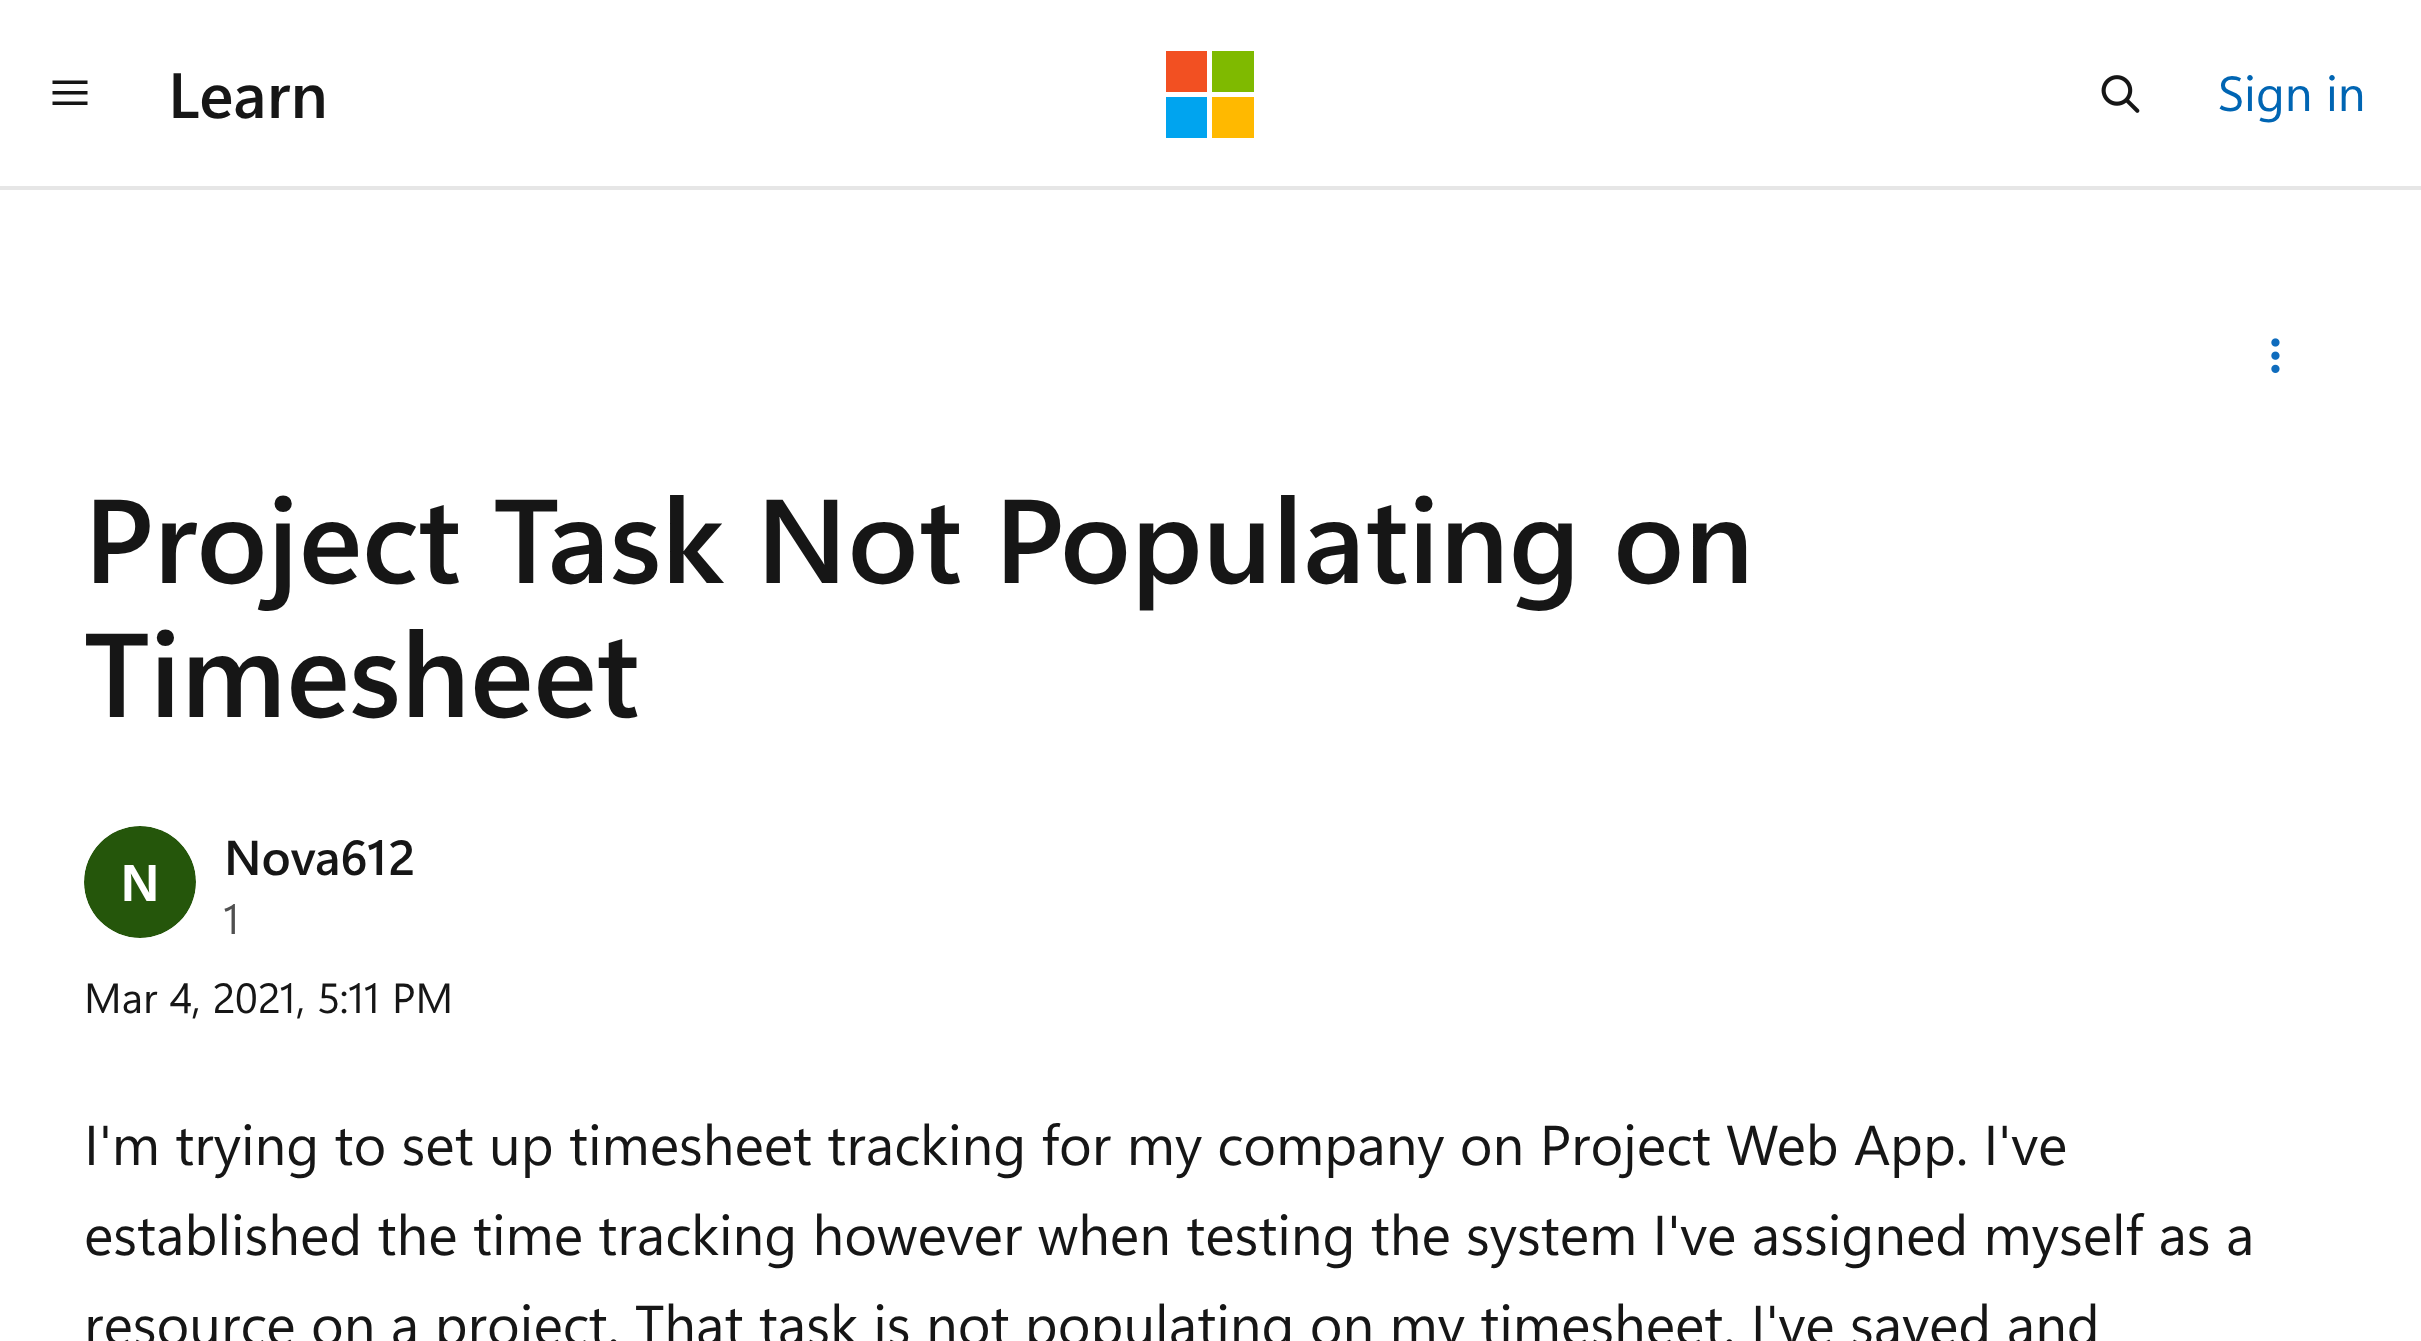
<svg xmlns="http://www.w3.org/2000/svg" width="2421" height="1341">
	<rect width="100%" height="100%" fill="#FFFFFF" />
	<rect x="0" y="186" width="2421" height="4" fill="#E6E6E6" />
	<path d="M87.5 84H52.5V80.5H87.5ZM87.5 91H52.5V94.5H87.5ZM87.5 101.5H52.5V105H87.5Z" fill="#161616" />
	<text x="168" y="118" font-family="Segoe UI" font-size="64" font-weight="600" fill="#161616">Learn</text>
	<rect x="1166" y="51" width="41" height="41" fill="#F25022" />
	<rect x="1212" y="51" width="42" height="41" fill="#7FBA00" />
	<rect x="1166" y="97" width="41" height="41" fill="#00A4EF" />
	<rect x="1212" y="97" width="42" height="41" fill="#FFB900" />
	<image x="2101" y="75" width="39" height="38" href="assets/img1.png" />
	<text x="2218" y="111" font-family="Segoe UI" font-size="49" fill="#0065B3">Sign in</text>
	<image x="2271" y="338" width="9" height="35" href="assets/img2.png" />
	<g font-family="Segoe UI" font-size="119" font-weight="600" fill="#161616">
		<text x="84" y="583">Project Task Not Populating on</text>
		<text x="84" y="717">Timesheet</text>
	</g>
	<circle cx="140" cy="882" r="56" fill="#F2F2F2" />
	<image x="84" y="826" width="112" height="112" href="assets/img3.png" />
	<text x="224" y="875" font-family="Segoe UI" font-size="49" font-weight="600" fill="#161616">Nova612</text>
	<text x="224" y="934" font-family="Segoe UI" font-size="42" fill="#505050">1</text>
	<text x="84" y="1013" font-family="Segoe UI" font-size="42" fill="#161616">Mar 4, 2021, 5:11 PM</text>
	<g font-family="Segoe UI" font-size="56" fill="#161616">
		<text x="84" y="1165">I'm trying to set up timesheet tracking for my company on Project Web App. I've</text>
		<text x="84" y="1255">established the time tracking however when testing the system I've assigned myself as a</text>
		<text x="84" y="1345">resource on a project. That task is not populating on my timesheet. I've saved and</text>
	</g>
</svg>
